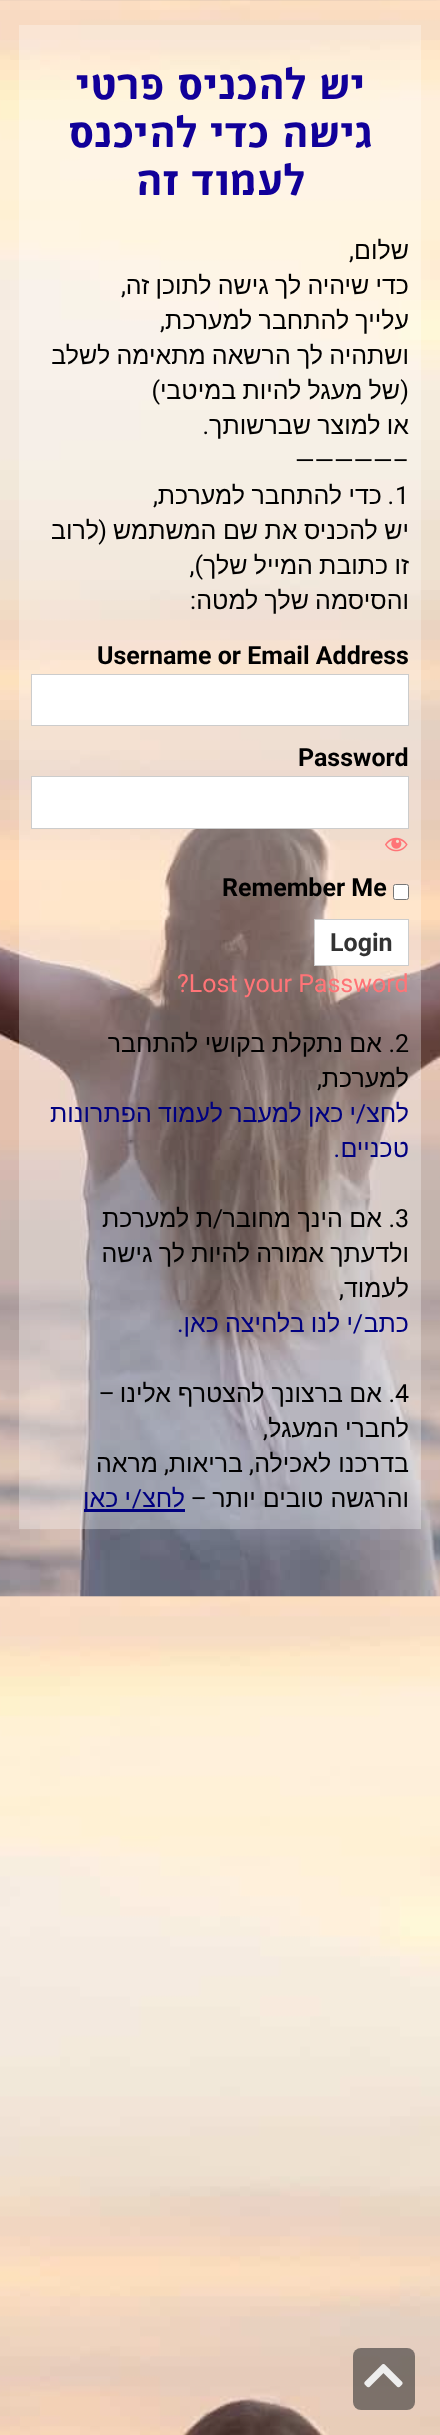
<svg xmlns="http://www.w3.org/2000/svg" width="440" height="2435">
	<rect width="100%" height="100%" fill="#FFFFFF" />
	<image x="0" y="0" width="440" height="2435" href="assets/img1.png" />
	<rect x="19" y="25" width="402" height="605" fill="#FFFFFF" fill-opacity="0.3" />
	<g font-family="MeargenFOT" font-size="48.25" direction="rtl" fill="#110099">
		<text x="365" y="99">יש להכניס פרטי</text>
		<text x="373" y="147">גישה כדי להיכנס</text>
		<text x="305" y="195">לעמוד זה</text>
	</g>
	<text x="409" y="259" font-family="Liberation Sans" font-size="25" direction="rtl" fill="#000000">שלום</text>
	<text x="354" y="259" font-family="Roboto" font-size="25" direction="rtl" fill="#000000">,</text>
	<text x="409" y="294" word-spacing="-0.75" font-family="Liberation Sans" font-size="25" direction="rtl" fill="#000000">כדי שיהיה לך גישה לתוכן זה</text>
	<text x="126" y="294" font-family="Roboto" font-size="25" direction="rtl" fill="#000000">,</text>
	<text x="409" y="329" word-spacing="-0.75" font-family="Liberation Sans" font-size="25" direction="rtl" fill="#000000">עלייך להתחבר למערכת</text>
	<text x="165" y="329" font-family="Roboto" font-size="25" direction="rtl" fill="#000000">,</text>
	<g font-family="Liberation Sans" font-size="25" direction="rtl" fill="#000000">
		<text x="409" y="364" word-spacing="-0.75">ושתהיה לך הרשאה מתאימה לשלב</text>
		<text x="400" y="399" word-spacing="-0.75">של מעגל להיות במיטבי</text>
	</g>
	<g font-family="Roboto" font-size="25" direction="rtl" fill="#000000">
		<text x="409" y="399">(</text>
		<text x="160" y="399">)</text>
	</g>
	<text x="409" y="434" word-spacing="-0.75" font-family="Liberation Sans" font-size="25" direction="rtl" fill="#000000">או למוצר שברשותך</text>
	<text x="209" y="434" font-family="Roboto" font-size="25" direction="rtl" fill="#000000">.</text>
	<g font-family="Roboto" font-size="25" fill="#000000">
		<text x="295" y="469">—————–</text>
		<text x="395" y="504">1</text>
	</g>
	<text x="394" y="504" font-family="Roboto" font-size="25" direction="rtl" fill="#000000">.</text>
	<text x="382" y="504" word-spacing="-0.5" font-family="Liberation Sans" font-size="25" direction="rtl" fill="#000000">כדי להתחבר למערכת</text>
	<text x="158" y="504" font-family="Roboto" font-size="25" direction="rtl" fill="#000000">,</text>
	<text x="409" y="539" word-spacing="-0.5" font-family="Liberation Sans" font-size="25" direction="rtl" fill="#000000">יש להכניס את שם המשתמש</text>
	<text x="107" y="539" font-family="Roboto" font-size="25" direction="rtl" fill="#000000">(</text>
	<g font-family="Liberation Sans" font-size="25" direction="rtl" fill="#000000">
		<text x="99" y="539">לרוב</text>
		<text x="409" y="574" word-spacing="-0.75">זו כתובת המייל שלך</text>
	</g>
	<text x="203" y="574" font-family="Roboto" font-size="25" direction="rtl" fill="#000000">),</text>
	<text x="409" y="609" word-spacing="-0.75" font-family="Liberation Sans" font-size="25" direction="rtl" fill="#000000">והסיסמה שלך למטה</text>
	<text x="196" y="609" font-family="Roboto" font-size="25" direction="rtl" fill="#000000">:</text>
	<rect x="19" y="630" width="402" height="384" fill="#FFFFFF" fill-opacity="0.3" />
	<text x="97" y="664" font-family="Roboto" font-size="25" font-weight="700" fill="#000000">Username or Email Address</text>
	<rect x="31.5" y="674.5" width="377" height="51" fill="#FFFFFF" stroke="#CCCCCC" />
	<text x="298" y="766" font-family="Roboto" font-size="25" font-weight="700" fill="#000000">Password</text>
	<rect x="31.5" y="776.5" width="377" height="52" fill="#FFFFFF" stroke="#CCCCCC" />
	<image x="385" y="837" width="23" height="15" href="assets/img2.png" />
	<rect x="393.5" y="884.5" width="15" height="15" rx="2" fill="#FFFFFF" stroke="#767676" />
	<text x="222" y="896" font-family="Roboto" font-size="25" font-weight="700" fill="#000000">Remember Me</text>
	<rect x="314.5" y="919.5" width="94" height="46" fill="#FFFFFF" stroke="#CCCCCC" />
	<text x="330" y="951" font-family="Roboto" font-size="25" font-weight="700" fill="#333333">Login</text>
	<text x="177" y="992" font-family="Roboto" font-size="25" fill="#FF7477">?Lost your Password</text>
	<rect x="19" y="1014" width="402" height="515" fill="#FFFFFF" fill-opacity="0.3" />
	<text x="395" y="1052" font-family="Roboto" font-size="25" fill="#000000">2</text>
	<text x="395" y="1052" font-family="Roboto" font-size="25" direction="rtl" fill="#000000">.</text>
	<g font-family="Liberation Sans" font-size="25" direction="rtl" fill="#000000">
		<text x="382" y="1052" word-spacing="-0.5">אם נתקלת בקושי להתחבר</text>
		<text x="409" y="1087">למערכת</text>
	</g>
	<text x="322" y="1087" font-family="Roboto" font-size="25" direction="rtl" fill="#000000">,</text>
	<g font-family="Liberation Sans" font-size="25" direction="rtl" fill="#000080">
		<text x="409" y="1122">לחצ</text>
		<text x="356" y="1122" word-spacing="-0.75">י כאן למעבר לעמוד הפתרונות</text>
	</g>
	<text x="366" y="1122" font-family="Roboto" font-size="25" direction="rtl" fill="#000080">/</text>
	<text x="409" y="1157" font-family="Liberation Sans" font-size="25" direction="rtl" fill="#000080">טכניים</text>
	<text x="340" y="1157" font-family="Roboto" font-size="25" direction="rtl" fill="#000080">.</text>
	<text x="395" y="1227" font-family="Roboto" font-size="25" fill="#000000">3</text>
	<text x="395" y="1227" font-family="Roboto" font-size="25" direction="rtl" fill="#000000">.</text>
	<text x="382" y="1227" word-spacing="-0.5" font-family="Liberation Sans" font-size="25" direction="rtl" fill="#000000">אם הינך מחובר</text>
	<text x="223" y="1227" font-family="Roboto" font-size="25" direction="rtl" fill="#000000">/</text>
	<g font-family="Liberation Sans" font-size="25" direction="rtl" fill="#000000">
		<text x="213" y="1227" word-spacing="-0.5">ת למערכת</text>
		<text x="409" y="1262" word-spacing="-0.75">ולדעתך אמורה להיות לך גישה</text>
		<text x="409" y="1297">לעמוד</text>
	</g>
	<text x="344" y="1297" font-family="Roboto" font-size="25" direction="rtl" fill="#000000">,</text>
	<g font-family="Liberation Sans" font-size="25" direction="rtl" fill="#000080">
		<text x="409" y="1332">כתב</text>
		<text x="353" y="1332" word-spacing="-0.75">י לנו בלחיצה כאן</text>
	</g>
	<text x="363" y="1332" font-family="Roboto" font-size="25" direction="rtl" fill="#000080">/</text>
	<text x="177" y="1332" font-family="Roboto" font-size="25" fill="#000080">.</text>
	<text x="395" y="1402" font-family="Roboto" font-size="25" fill="#000000">4</text>
	<g font-family="Liberation Sans" font-size="25" direction="rtl" fill="#000000">
		<text x="382" y="1402">אם</text>
		<text x="343" y="1402">ברצונך להצטרף אלינו</text>
	</g>
	<g font-family="Roboto" font-size="25" direction="rtl" fill="#000000">
		<text x="115" y="1402">–</text>
		<text x="395" y="1402">.</text>
	</g>
	<text x="409" y="1437" word-spacing="-0.75" font-family="Liberation Sans" font-size="25" direction="rtl" fill="#000000">לחברי המעגל</text>
	<text x="268" y="1437" font-family="Roboto" font-size="25" direction="rtl" fill="#000000">,</text>
	<text x="409" y="1472" font-family="Liberation Sans" font-size="25" direction="rtl" fill="#000000">בדרכנו לאכילה</text>
	<text x="254" y="1472" font-family="Roboto" font-size="25" direction="rtl" fill="#000000">,</text>
	<text x="243" y="1472" font-family="Liberation Sans" font-size="25" direction="rtl" fill="#000000">בריאות</text>
	<text x="169" y="1472" font-family="Roboto" font-size="25" direction="rtl" fill="#000000">,</text>
	<g font-family="Liberation Sans" font-size="25" direction="rtl" fill="#000000">
		<text x="158" y="1472">מראה</text>
		<text x="409" y="1507">והרגשה טובים יותר</text>
	</g>
	<text x="207" y="1507" font-family="Roboto" font-size="25" direction="rtl" fill="#000000">–</text>
	<text x="142" y="1507" font-family="Roboto" font-size="25" direction="rtl" fill="#000080">/</text>
	<text x="185" y="1507" font-family="Liberation Sans" font-size="25" direction="rtl" fill="#000080">לחצ</text>
	<rect x="84" y="1509" width="101" height="3" fill="#000080" />
	<text x="131" y="1507" word-spacing="-0.75" font-family="Liberation Sans" font-size="25" direction="rtl" fill="#000080">י כאן</text>
	<rect x="353" y="2348" width="62" height="62" rx="8" fill="#333333" fill-opacity="0.6" />
	<image x="364" y="2364" width="39" height="24" href="assets/img3.png" />
</svg>
